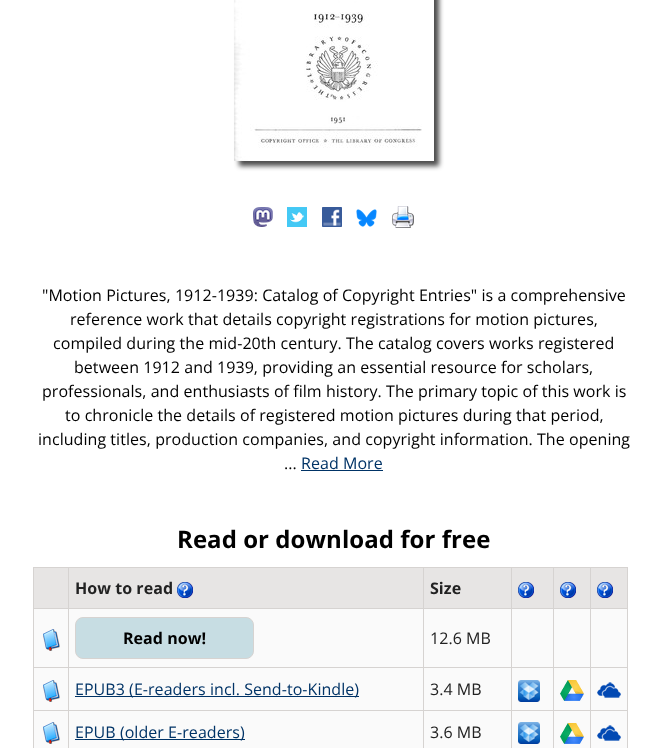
<svg xmlns="http://www.w3.org/2000/svg" width="667" height="748">
	<defs>
		<clipPath id="clip1"><path d="M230 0H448V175H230ZM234-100H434V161H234Z" clip-rule="evenodd" /></clipPath>
	</defs>
	<rect width="100%" height="100%" fill="#FFFFFF" />
	<g clip-path="url(#clip1)">
		<rect x="239" y="-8" width="200" height="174" fill="#000000" fill-opacity="0.7" filter="blur(2.5px)" />
	</g>
	<image x="234" y="0" width="188" height="161" href="assets/img1.png" />
	<image x="253" y="207" width="20" height="20" href="assets/img2.png" />
	<image x="287" y="207" width="20" height="20" href="assets/img3.png" />
	<image x="322" y="207" width="20" height="20" href="assets/img4.png" />
	<image x="356" y="209" width="21" height="18" href="assets/img5.png" />
	<image x="392" y="206" width="22" height="22" href="assets/img6.png" />
	<g font-family="Open Sans" font-size="16" letter-spacing="0.05" fill="#000000">
		<text x="42" y="301">"Motion Pictures, 1912-1939: Catalog of Copyright Entries" is a comprehensive</text>
		<text x="70" y="325">reference work that details copyright registrations for motion pictures,</text>
		<text x="53" y="349">compiled during the mid-20th century. The catalog covers works registered</text>
		<text x="74" y="373">between 1912 and 1939, providing an essential resource for scholars,</text>
		<text x="42" y="397">professionals, and enthusiasts of film history. The primary topic of this work is</text>
		<text x="65" y="421">to chronicle the details of registered motion pictures during that period,</text>
		<text x="38" y="445">including titles, production companies, and copyright information. The opening</text>
		<text x="284" y="469">...</text>
	</g>
	<rect x="301" y="470" width="82" height="1" fill="#003366" />
	<text x="301" y="469" font-family="Open Sans" font-size="16" letter-spacing="0.05" fill="#003366">Read More</text>
	<text x="177" y="548" font-family="Open Sans" font-size="24" font-weight="700" letter-spacing="0.05" fill="#000000">Read or download for free</text>
	<rect x="34" y="568" width="34" height="40" fill="#E7E5E4" />
	<rect x="590" y="567" width="38" height="1" fill="#D6D3D1" />
	<rect x="590" y="608" width="38" height="1" fill="#D6D3D1" />
	<rect x="590" y="667" width="38" height="1" fill="#D6D3D1" />
	<rect x="590" y="710" width="38" height="1" fill="#D6D3D1" />
	<rect x="590" y="710" width="1" height="38" fill="#D6D3D1" />
	<rect x="553" y="710" width="38" height="1" fill="#D6D3D1" />
	<rect x="590" y="667" width="1" height="44" fill="#D6D3D1" />
	<rect x="553" y="667" width="38" height="1" fill="#D6D3D1" />
	<rect x="590" y="608" width="1" height="60" fill="#D6D3D1" />
	<rect x="553" y="608" width="38" height="1" fill="#D6D3D1" />
	<rect x="590" y="567" width="1" height="42" fill="#D6D3D1" />
	<rect x="553" y="567" width="38" height="1" fill="#D6D3D1" />
	<rect x="553" y="710" width="1" height="38" fill="#D6D3D1" />
	<rect x="511" y="710" width="43" height="1" fill="#D6D3D1" />
	<rect x="553" y="667" width="1" height="44" fill="#D6D3D1" />
	<rect x="511" y="667" width="43" height="1" fill="#D6D3D1" />
	<rect x="553" y="608" width="1" height="60" fill="#D6D3D1" />
	<rect x="511" y="608" width="43" height="1" fill="#D6D3D1" />
	<rect x="553" y="567" width="1" height="42" fill="#D6D3D1" />
	<rect x="511" y="567" width="43" height="1" fill="#D6D3D1" />
	<rect x="511" y="710" width="1" height="38" fill="#D6D3D1" />
	<rect x="423" y="710" width="89" height="1" fill="#D6D3D1" />
	<rect x="511" y="667" width="1" height="44" fill="#D6D3D1" />
	<rect x="423" y="667" width="89" height="1" fill="#D6D3D1" />
	<rect x="511" y="608" width="1" height="60" fill="#D6D3D1" />
	<rect x="423" y="608" width="89" height="1" fill="#D6D3D1" />
	<rect x="511" y="567" width="1" height="42" fill="#D6D3D1" />
	<rect x="423" y="567" width="89" height="1" fill="#D6D3D1" />
	<rect x="423" y="710" width="1" height="38" fill="#D6D3D1" />
	<rect x="68" y="710" width="356" height="1" fill="#D6D3D1" />
	<rect x="423" y="667" width="1" height="44" fill="#D6D3D1" />
	<rect x="68" y="667" width="356" height="1" fill="#D6D3D1" />
	<rect x="423" y="608" width="1" height="60" fill="#D6D3D1" />
	<rect x="68" y="608" width="356" height="1" fill="#D6D3D1" />
	<rect x="423" y="567" width="1" height="42" fill="#D6D3D1" />
	<rect x="68" y="567" width="356" height="1" fill="#D6D3D1" />
	<rect x="68" y="710" width="1" height="38" fill="#D6D3D1" />
	<rect x="33" y="710" width="36" height="1" fill="#D6D3D1" />
	<rect x="68" y="667" width="1" height="44" fill="#D6D3D1" />
	<rect x="33" y="667" width="36" height="1" fill="#D6D3D1" />
	<rect x="68" y="608" width="1" height="60" fill="#D6D3D1" />
	<rect x="33" y="608" width="36" height="1" fill="#D6D3D1" />
	<rect x="68" y="567" width="1" height="42" fill="#D6D3D1" />
	<rect x="33" y="567" width="36" height="1" fill="#D6D3D1" />
	<rect x="33" y="710" width="1" height="38" fill="#D6D3D1" />
	<rect x="33" y="667" width="1" height="44" fill="#D6D3D1" />
	<rect x="33" y="608" width="1" height="60" fill="#D6D3D1" />
	<rect x="33" y="567" width="1" height="42" fill="#D6D3D1" />
	<rect x="69" y="568" width="354" height="40" fill="#E7E5E4" />
	<text x="75" y="594" font-family="Open Sans" font-size="16" font-weight="700" letter-spacing="0.05" fill="#222222">How to read</text>
	<image x="177" y="582" width="16" height="16" href="assets/img7.png" />
	<rect x="424" y="568" width="87" height="40" fill="#E7E5E4" />
	<text x="430" y="594" font-family="Open Sans" font-size="16" font-weight="700" letter-spacing="0.05" fill="#222222">Size</text>
	<rect x="512" y="568" width="41" height="40" fill="#E7E5E4" />
	<image x="518" y="582" width="16" height="16" href="assets/img7.png" />
	<rect x="554" y="568" width="36" height="40" fill="#E7E5E4" />
	<image x="560" y="582" width="16" height="16" href="assets/img7.png" />
	<rect x="591" y="568" width="36" height="40" fill="#E7E5E4" />
	<rect x="627" y="710" width="1" height="38" fill="#D6D3D1" />
	<rect x="627" y="667" width="1" height="44" fill="#D6D3D1" />
	<rect x="627" y="608" width="1" height="60" fill="#D6D3D1" />
	<rect x="627" y="567" width="1" height="42" fill="#D6D3D1" />
	<image x="597" y="582" width="16" height="16" href="assets/img7.png" />
	<rect x="34" y="609" width="34" height="58" fill="#FAFAFA" />
	<image x="43" y="629" width="17" height="22" href="assets/img8.png" />
	<rect x="69" y="609" width="354" height="58" fill="#FAFAFA" />
	<rect x="75.5" y="617.5" width="178" height="41" rx="7.5" fill="#C7DDE3" stroke="#D6D3D1" />
	<text x="123" y="644" font-family="Open Sans" font-size="16" font-weight="700" letter-spacing="0.05" fill="#000000">Read now!</text>
	<rect x="424" y="609" width="87" height="58" fill="#FAFAFA" />
	<text x="430" y="644" font-family="Open Sans" font-size="16" letter-spacing="0.05" fill="#222222">12.6 MB</text>
	<rect x="512" y="609" width="41" height="58" fill="#FAFAFA" />
	<rect x="554" y="609" width="36" height="58" fill="#FAFAFA" />
	<rect x="591" y="609" width="36" height="58" fill="#FAFAFA" />
	<rect x="34" y="668" width="34" height="42" fill="#FAFAFA" />
	<image x="43" y="680" width="17" height="22" href="assets/img8.png" />
	<rect x="69" y="668" width="354" height="42" fill="#FAFAFA" />
	<rect x="75" y="696" width="284" height="1" fill="#003366" />
	<text x="75" y="695" font-family="Open Sans" font-size="16" letter-spacing="0.05" fill="#003366">EPUB3 (E-readers incl. Send-to-Kindle)</text>
	<rect x="424" y="668" width="87" height="42" fill="#FAFAFA" />
	<text x="430" y="695" font-family="Open Sans" font-size="16" letter-spacing="0.05" fill="#222222">3.4 MB</text>
	<rect x="512" y="668" width="41" height="42" fill="#FAFAFA" />
	<image x="518" y="680" width="22" height="22" href="assets/img9.png" />
	<rect x="554" y="668" width="36" height="42" fill="#FAFAFA" />
	<image x="560" y="680" width="24" height="21" href="assets/img10.png" />
	<rect x="591" y="668" width="36" height="42" fill="#FAFAFA" />
	<image x="597" y="682" width="24" height="16" href="assets/img11.png" />
	<rect x="34" y="711" width="34" height="37" fill="#FAFAFA" />
	<image x="43" y="722" width="17" height="22" href="assets/img8.png" />
	<rect x="69" y="711" width="354" height="37" fill="#FAFAFA" />
	<rect x="75" y="739" width="170" height="1" fill="#003366" />
	<text x="75" y="738" font-family="Open Sans" font-size="16" letter-spacing="0.05" fill="#003366">EPUB (older E-readers)</text>
	<rect x="424" y="711" width="87" height="37" fill="#FAFAFA" />
	<text x="430" y="738" font-family="Open Sans" font-size="16" letter-spacing="0.05" fill="#222222">3.6 MB</text>
	<rect x="512" y="711" width="41" height="37" fill="#FAFAFA" />
	<image x="518" y="722" width="22" height="22" href="assets/img9.png" />
	<rect x="554" y="711" width="36" height="37" fill="#FAFAFA" />
	<image x="560" y="723" width="24" height="21" href="assets/img10.png" />
	<rect x="591" y="711" width="36" height="37" fill="#FAFAFA" />
	<image x="597" y="725" width="24" height="16" href="assets/img11.png" />
</svg>
